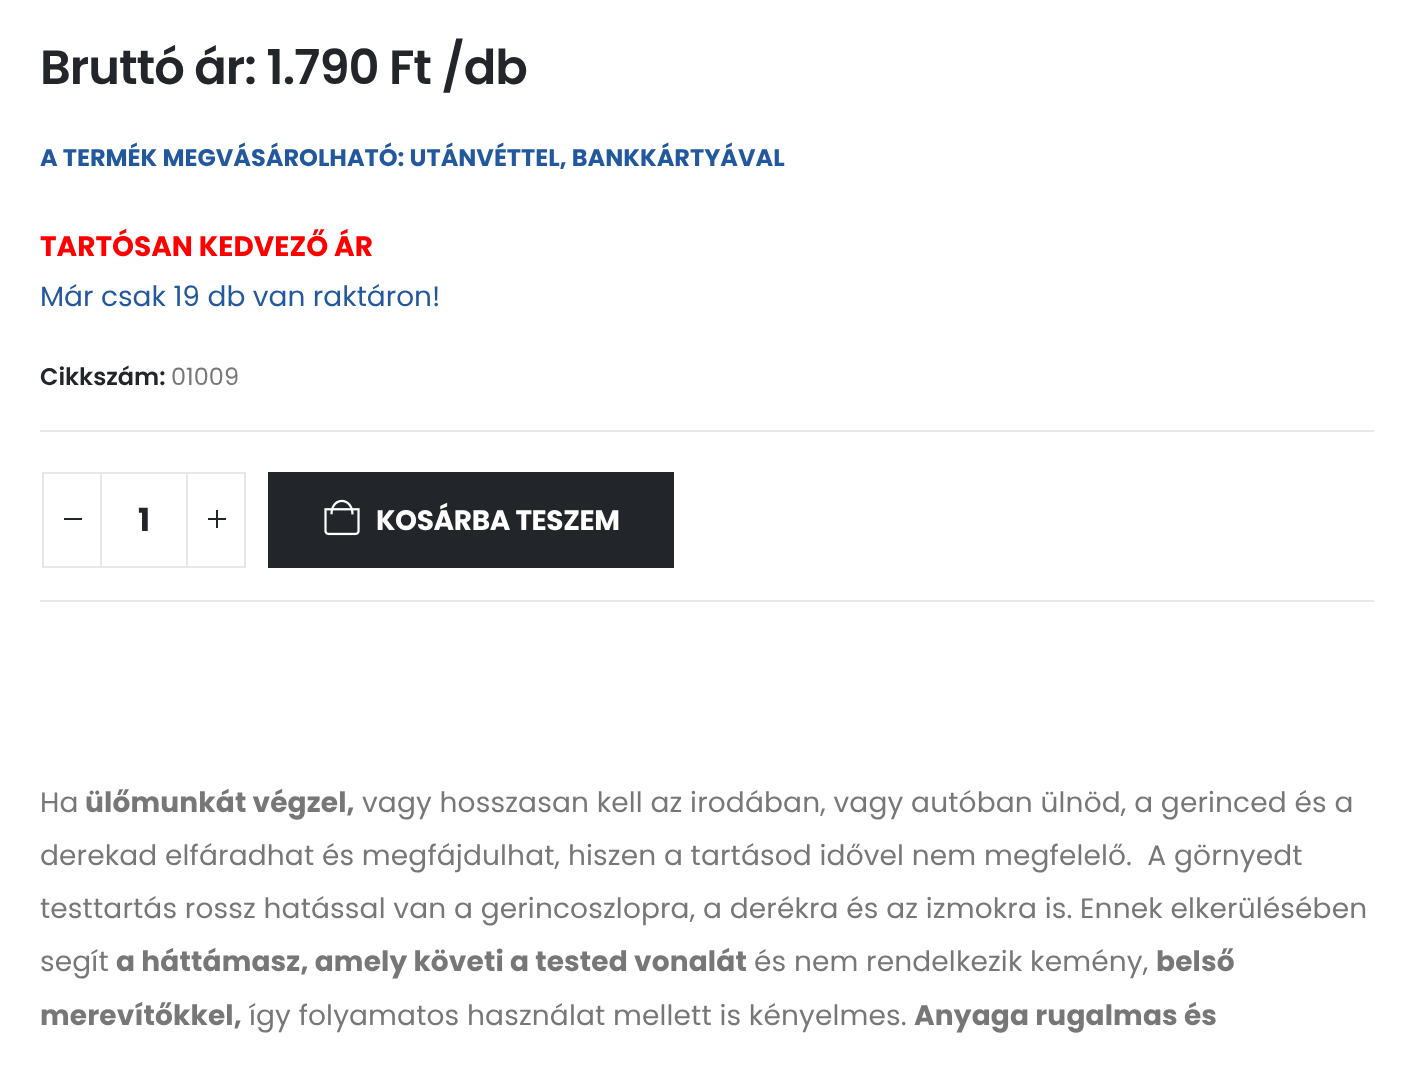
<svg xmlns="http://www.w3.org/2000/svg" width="1413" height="1071">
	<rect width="100%" height="100%" fill="#FFFFFF" />
	<text x="40" y="84" font-family="Poppins" font-size="48" font-weight="600" letter-spacing="-1" fill="#222529">Bruttó ár: 1.790 Ft /db</text>
	<text x="40" y="166" font-family="Poppins" font-size="24" font-weight="700" fill="#22589E">A TERMÉK MEGVÁSÁROLHATÓ: UTÁNVÉTTEL, BANKKÁRTYÁVAL</text>
	<text x="40" y="256" font-family="Poppins" font-size="28" font-weight="700" fill="#FF0000">TARTÓSAN KEDVEZŐ ÁR</text>
	<text x="40" y="306" font-family="Poppins" font-size="28" fill="#22589E">Már csak 19 db van raktáron!</text>
	<text x="40" y="385" font-family="Poppins" font-size="24" font-weight="600" fill="#222529">Cikkszám:</text>
	<text x="171" y="385" font-family="Poppins" font-size="24" fill="#777777">01009</text>
	<rect x="40" y="430" width="1334" height="2" fill="#E7E7E7" />
	<rect x="40" y="600" width="1334" height="2" fill="#E7E7E7" />
	<rect x="100" y="472" width="88" height="2" fill="#E7E7E7" />
	<rect x="100" y="566" width="88" height="2" fill="#E7E7E7" />
	<rect x="43" y="473" width="58" height="94" fill="none" stroke="#E7E7E7" stroke-width="2" />
	<rect x="64" y="518" width="18" height="2" fill="#222529" />
	<text x="138" y="531" font-family="Poppins" font-size="32" font-weight="700" fill="#222529">1</text>
	<rect x="187" y="473" width="58" height="94" fill="none" stroke="#E7E7E7" stroke-width="2" />
	<rect x="208" y="518" width="18" height="2" fill="#222529" />
	<rect x="216" y="510" width="2" height="18" fill="#222529" />
	<rect x="268" y="472" width="406" height="96" fill="#222529" />
	<image x="324" y="499" width="36" height="37" href="assets/img1.png" />
	<text x="376" y="530" font-family="Poppins" font-size="28" font-weight="700" letter-spacing="-0.4" fill="#FFFFFF">KOSÁRBA TESZEM</text>
	<text x="40" y="812" font-family="Poppins" font-size="28" letter-spacing="0.15" fill="#777777">Ha</text>
	<text x="85" y="812" font-family="Poppins" font-size="28" font-weight="700" letter-spacing="0.15" fill="#777777">ülőmunkát végzel,</text>
	<g font-family="Poppins" font-size="28" letter-spacing="0.15" fill="#777777">
		<text x="362" y="812">vagy hosszasan kell az irodában, vagy autóban ülnöd, a gerinced és a</text>
		<text x="40" y="865" xml:space="preserve">derekad elfáradhat és megfájdulhat, hiszen a tartásod idővel nem megfelelő.  A görnyedt</text>
		<text x="40" y="918">testtartás rossz hatással van a gerincoszlopra, a derékra és az izmokra is. Ennek elkerülésében</text>
		<text x="40" y="971">segít</text>
	</g>
	<text x="116" y="971" font-family="Poppins" font-size="28" font-weight="700" letter-spacing="0.15" fill="#777777">a háttámasz, amely követi a tested vonalát</text>
	<text x="754" y="971" font-family="Poppins" font-size="28" letter-spacing="0.15" fill="#777777">és nem rendelkezik kemény,</text>
	<g font-family="Poppins" font-size="28" font-weight="700" letter-spacing="0.15" fill="#777777">
		<text x="1156" y="971">belső</text>
		<text x="40" y="1025">merevítőkkel,</text>
	</g>
	<text x="249" y="1025" font-family="Poppins" font-size="28" letter-spacing="0.15" fill="#777777">így folyamatos használat mellett is kényelmes.</text>
	<text x="914" y="1025" font-family="Poppins" font-size="28" font-weight="700" letter-spacing="0.15" fill="#777777">Anyaga rugalmas és</text>
</svg>
